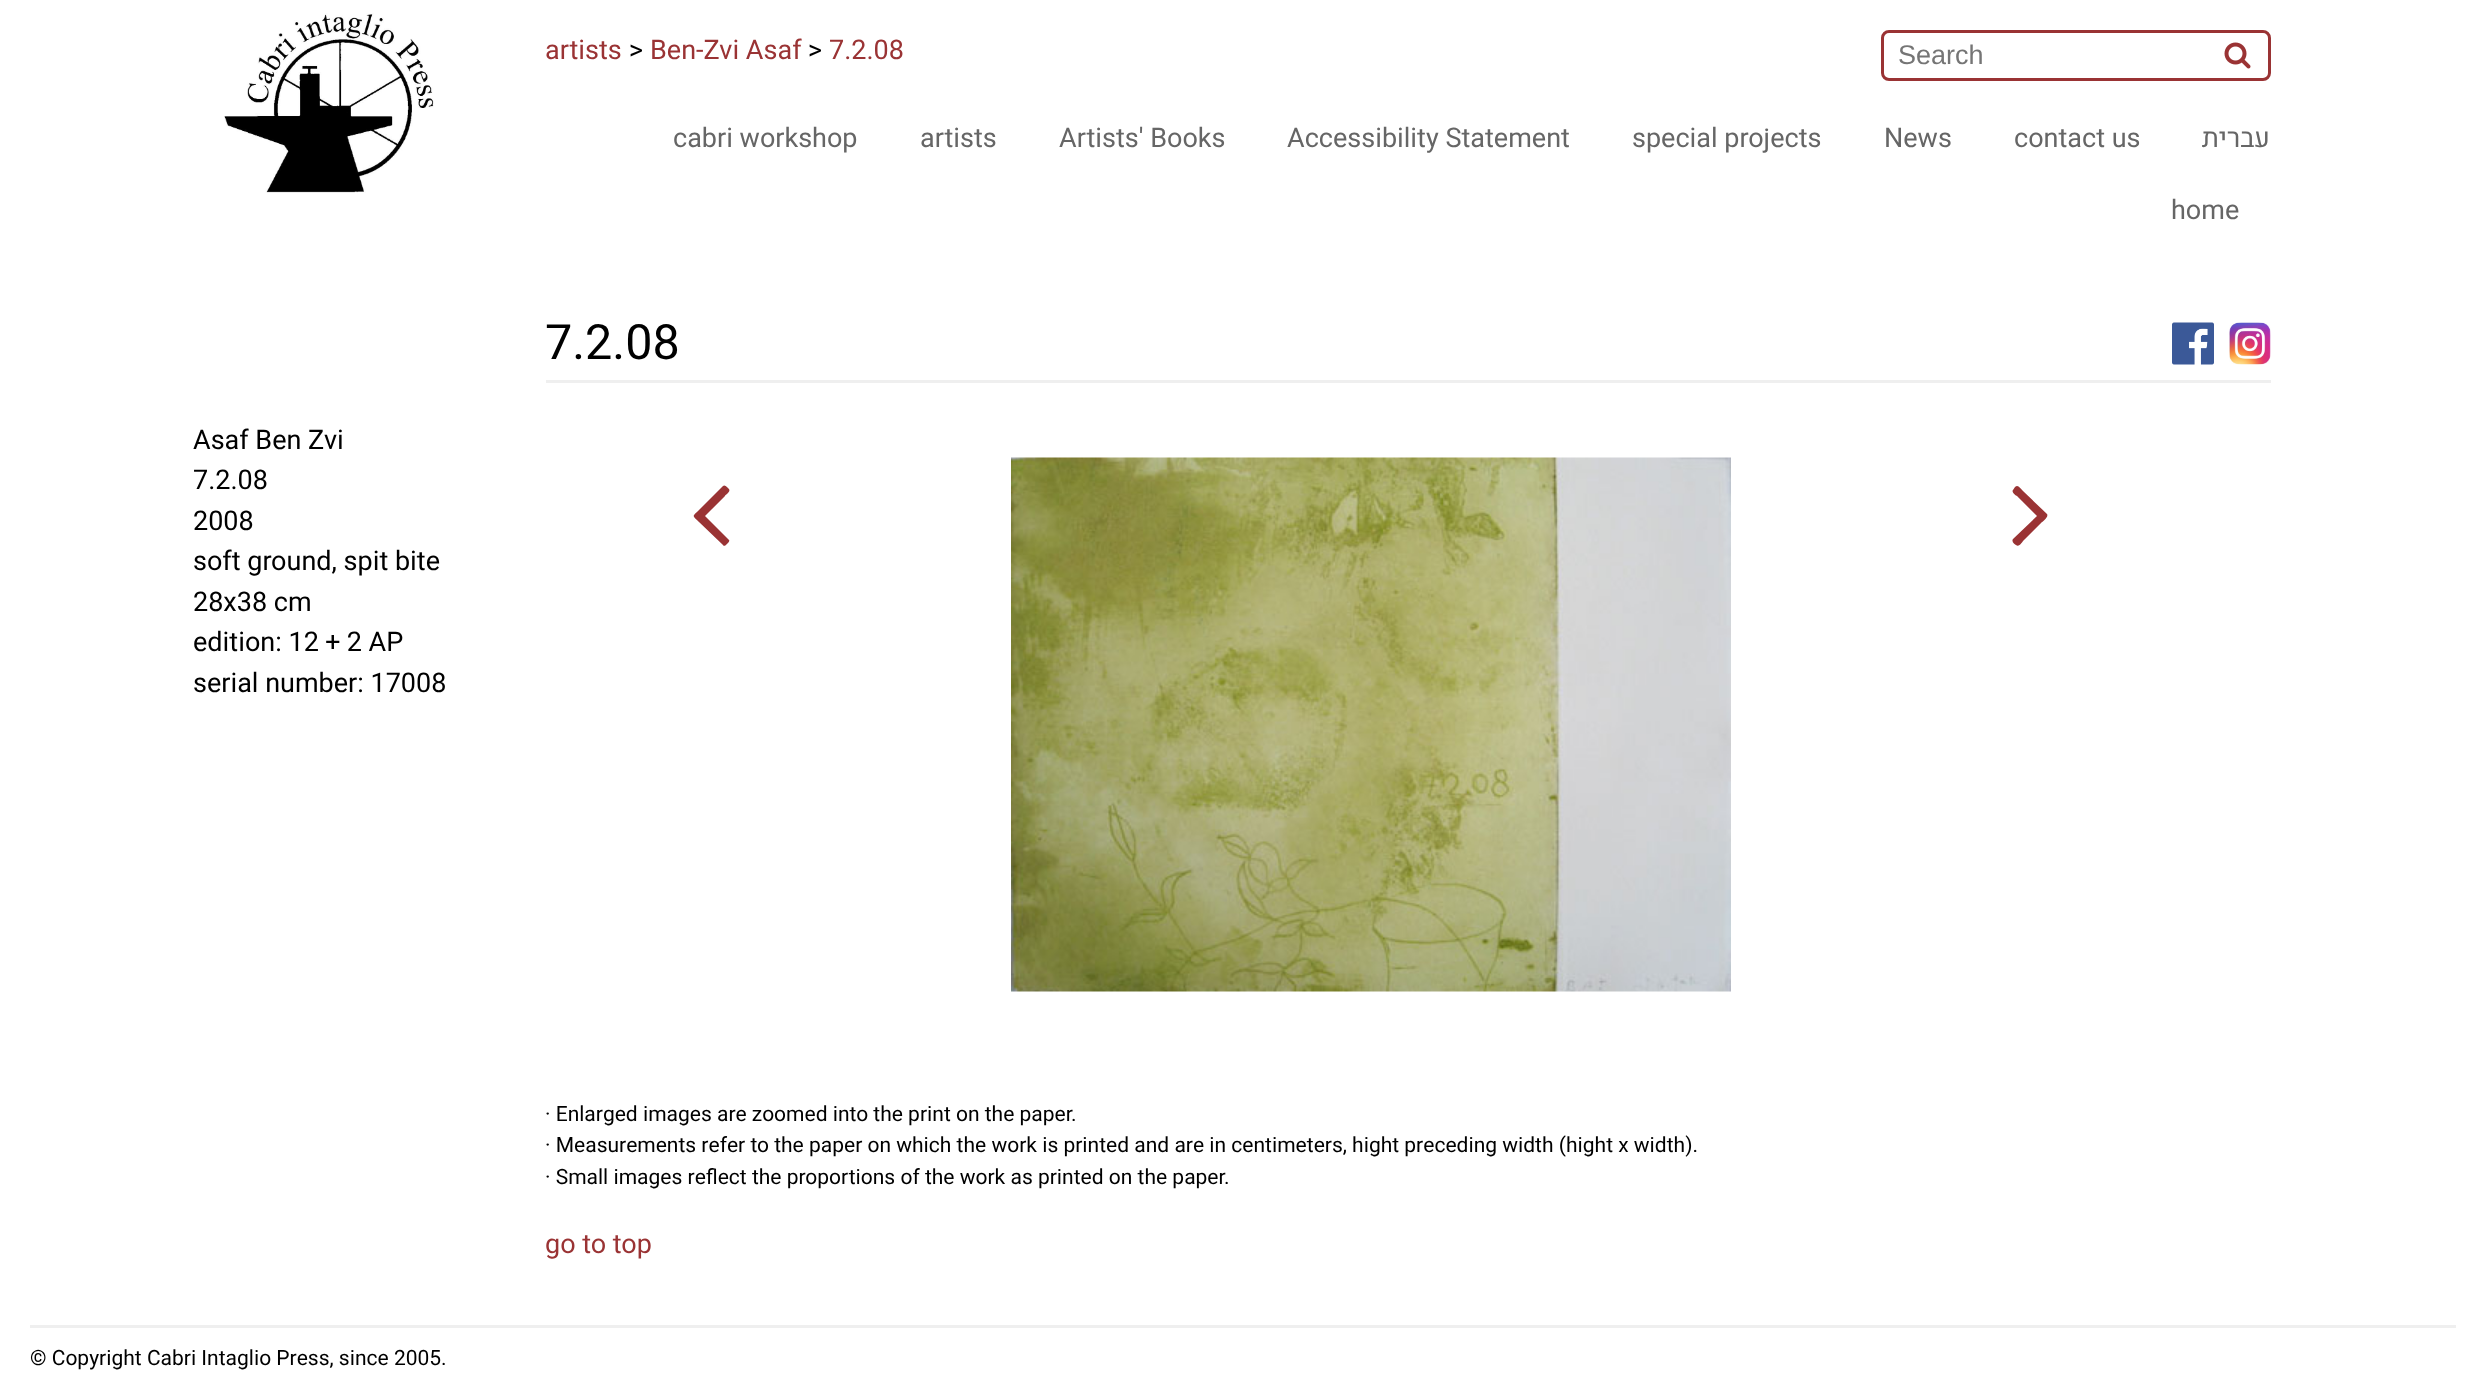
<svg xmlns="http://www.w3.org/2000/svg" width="2485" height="1386">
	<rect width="100%" height="100%" fill="#FFFFFF" />
	<image x="224" y="13" width="210" height="180" href="assets/img1.png" />
	<text x="545" y="59" font-family="Heebo" font-size="27" fill="#9A3334">artists</text>
	<text x="629" y="59" font-family="Heebo" font-size="27" fill="#000000">&gt;</text>
	<text x="650" y="59" font-family="Heebo" font-size="27" fill="#9A3334">Ben-Zvi Asaf</text>
	<text x="808" y="59" font-family="Heebo" font-size="27" fill="#000000">&gt;</text>
	<text x="829" y="59" font-family="Heebo" font-size="27" fill="#9A3334">7.2.08</text>
	<rect x="1882.5" y="31.5" width="387" height="48" rx="6.5" fill="none" stroke="#9A3334" stroke-width="3" />
	<text x="1898" y="64" font-family="Liberation Sans" font-size="27" fill="#757575">Search</text>
	<image x="2224" y="42" width="27" height="27" href="assets/img2.png" />
	<g font-family="Heebo" font-size="27" fill="#666666">
		<text x="673" y="147">cabri workshop</text>
		<text x="920" y="147">artists</text>
		<text x="1059" y="147">Artists' Books</text>
		<text x="1287" y="147">Accessibility Statement</text>
		<text x="1632" y="147">special projects</text>
		<text x="1884" y="147">News</text>
		<text x="2014" y="147">contact us</text>
	</g>
	<text x="2270" y="147" font-family="Heebo" font-size="27" direction="rtl" fill="#666666">עברית</text>
	<text x="2171" y="219" font-family="Heebo" font-size="27" fill="#666666">home</text>
	<g font-family="Heebo" font-size="27" fill="#000000">
		<text x="193" y="449">Asaf Ben Zvi</text>
		<text x="193" y="489">7.2.08</text>
		<text x="193" y="530">2008</text>
		<text x="193" y="570">soft ground, spit bite</text>
		<text x="193" y="611">28x38 cm</text>
		<text x="193" y="651">edition: 12 + 2 AP</text>
		<text x="193" y="692">serial number: 17008</text>
	</g>
	<text x="545" y="359" font-family="Heebo" font-size="48.5" fill="#000000">7.2.08</text>
	<image x="2172" y="322" width="42" height="43" href="assets/img3.png" />
	<image x="2229" y="322" width="42" height="43" href="assets/img4.png" />
	<rect x="546" y="380" width="1725" height="3" fill="#EFEFEF" />
	<path d="M729 489C731 492 725 495 725 496L705 516L729 540C730 541 728 543 727 544C726 545 724 547 723 545L699 522C692 515 692 517 699 510L723 486C725 484 728 488 729 489Z" fill="#9A3334" />
	<image x="1011" y="457" width="720" height="535" href="assets/img5.png" />
	<path d="M2047 514C2049 517 2042 522 2042 522L2023 541C2023 541 2019 548 2016 545C2015 544 2011 542 2013 539L2037 516L2017 496C2016 496 2011 492 2013 490L2015 487C2018 484 2020 488 2023 491Z" fill="#9A3334" />
	<g font-family="Heebo" font-size="21" fill="#000000">
		<text x="545" y="1121">· Enlarged images are zoomed into the print on the paper.</text>
		<text x="545" y="1152">· Measurements refer to the paper on which the work is printed and are in centimeters, hight preceding width (hight x width).</text>
		<text x="545" y="1184">· Small images reflect the proportions of the work as printed on the paper.</text>
	</g>
	<text x="545" y="1253" font-family="Heebo" font-size="27" fill="#9A3334">go to top</text>
	<rect x="30" y="1325" width="2426" height="3" fill="#EFEFEF" />
	<text x="30" y="1365" font-family="Heebo" font-size="21" fill="#000000">© Copyright Cabri Intaglio Press, since 2005.</text>
</svg>
